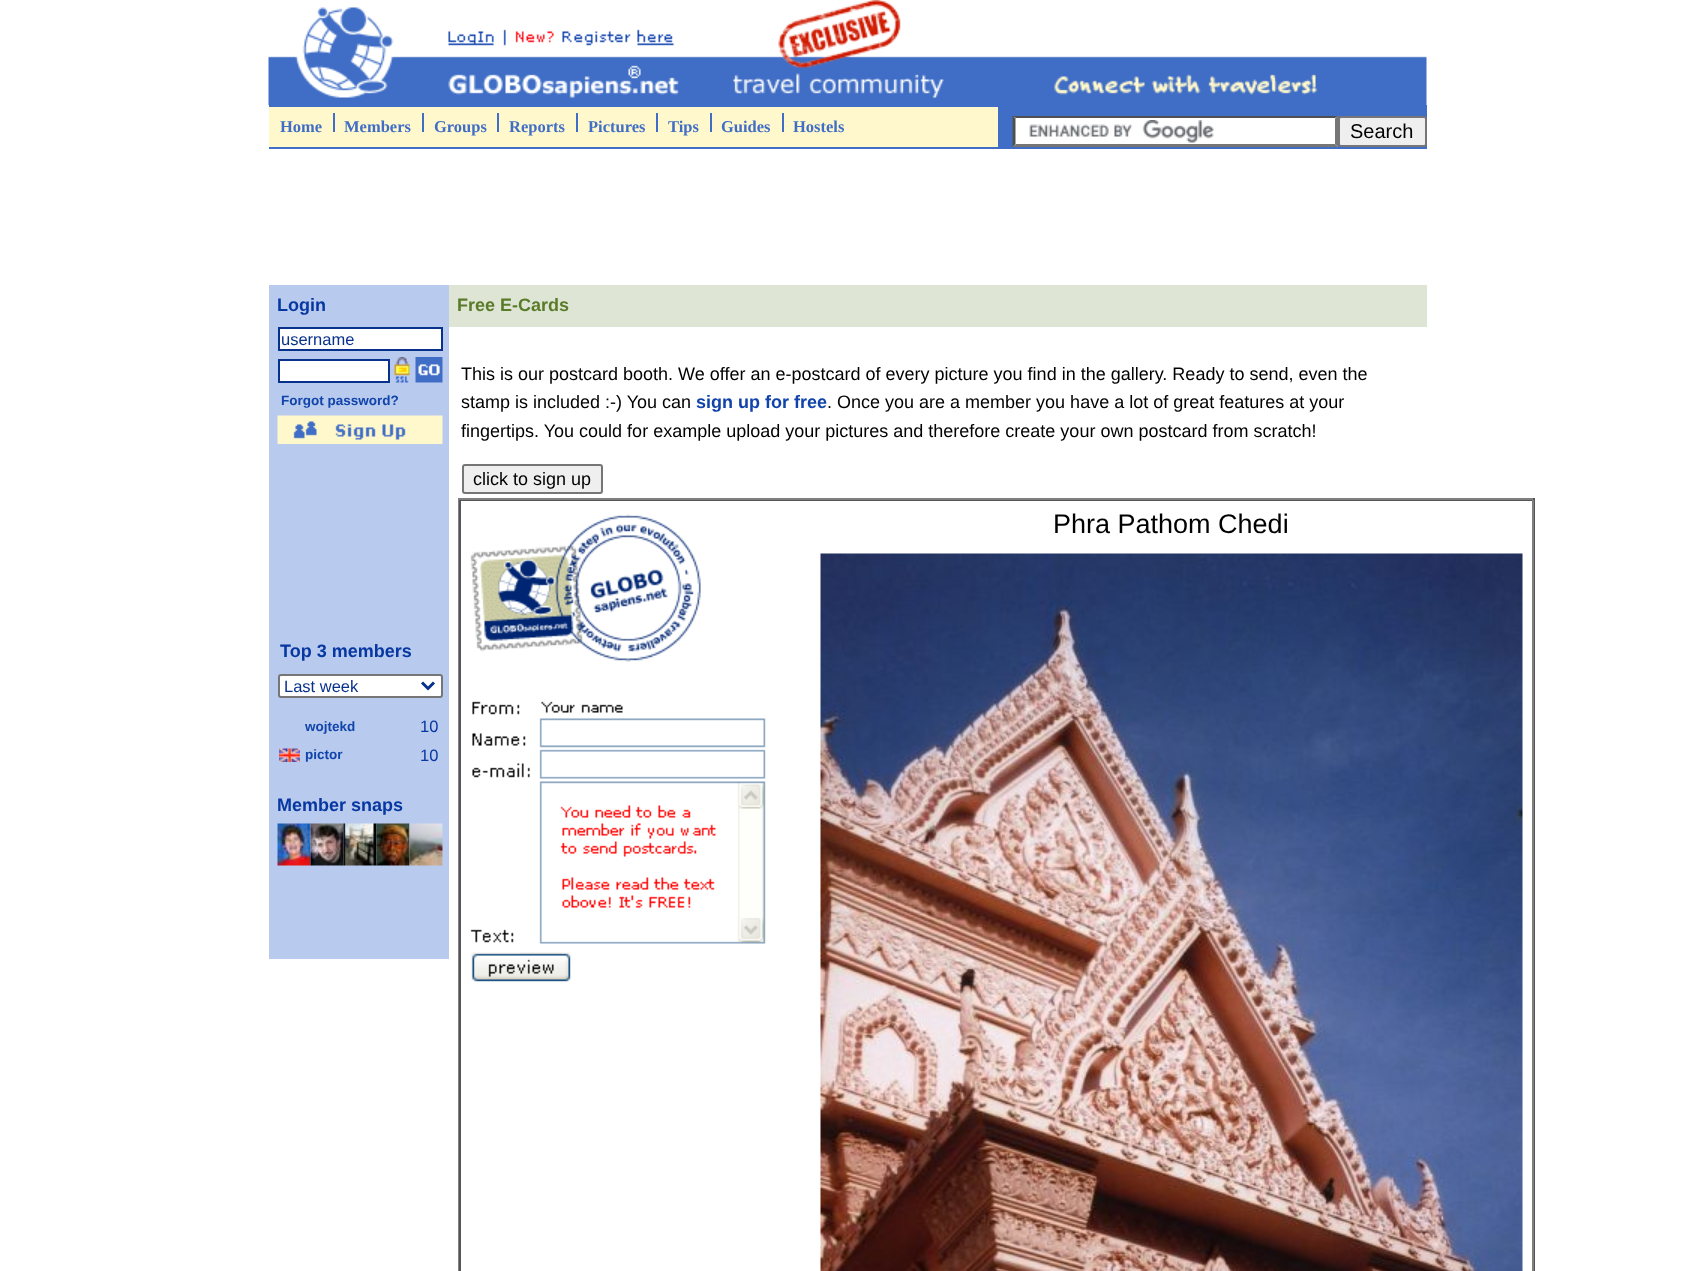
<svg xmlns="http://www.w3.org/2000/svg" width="1693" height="1271">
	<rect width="100%" height="100%" fill="#FFFFFF" />
	<image x="268" y="0" width="1159" height="105" href="assets/img1.png" />
	<rect x="269" y="105" width="1158" height="44" fill="#406EC6" />
	<rect x="269" y="107" width="729" height="40" fill="#FFF8CC" />
	<text x="280" y="132" font-family="Liberation Serif" font-size="16.5" font-weight="700" fill="#406EC6">Home</text>
	<rect x="333" y="113" width="2" height="19" fill="#406EC6" />
	<text x="344" y="132" font-family="Liberation Serif" font-size="16.5" font-weight="700" fill="#406EC6">Members</text>
	<rect x="422" y="113" width="2" height="19" fill="#406EC6" />
	<text x="434" y="132" font-family="Liberation Serif" font-size="16.5" font-weight="700" fill="#406EC6">Groups</text>
	<rect x="497" y="113" width="2" height="19" fill="#406EC6" />
	<text x="509" y="132" font-family="Liberation Serif" font-size="16.5" font-weight="700" fill="#406EC6">Reports</text>
	<rect x="576" y="113" width="2" height="19" fill="#406EC6" />
	<text x="588" y="132" font-family="Liberation Serif" font-size="16.5" font-weight="700" fill="#406EC6">Pictures</text>
	<rect x="656" y="113" width="2" height="19" fill="#406EC6" />
	<text x="668" y="132" font-family="Liberation Serif" font-size="16.5" font-weight="700" fill="#406EC6">Tips</text>
	<rect x="710" y="113" width="2" height="19" fill="#406EC6" />
	<text x="721" y="132" font-family="Liberation Serif" font-size="16.5" font-weight="700" fill="#406EC6">Guides</text>
	<rect x="782" y="113" width="2" height="19" fill="#406EC6" />
	<text x="793" y="132" font-family="Liberation Serif" font-size="16.5" font-weight="700" fill="#406EC6">Hostels</text>
	<rect x="1013" y="116" width="325" height="31" fill="#FFFFFF" />
	<image x="1029" y="120" width="185" height="23" href="assets/img2.png" />
	<path d="M1012 116H1338L1335 118H1016Z" fill="#4F4F4F" />
	<path d="M1338 115.5V147L1335 144V118.5Z" fill="#767676" />
	<path d="M1338 147H1012L1016 144H1335Z" fill="#767676" />
	<path d="M1012.5 147V115.5L1015.5 118.5V144Z" fill="#4F4F4F" />
	<rect x="1339" y="117" width="87" height="29" rx="2" fill="#EFEFEF" stroke="#767676" stroke-width="2" />
	<text x="1350" y="138" font-family="Liberation Sans" font-size="20" fill="#000000">Search</text>
	<rect x="269" y="285" width="180" height="674" fill="#B8CAEE" />
	<text x="277" y="311" font-family="Liberation Sans" font-size="18" font-weight="700" fill="#0737A1">Login</text>
	<rect x="279" y="328" width="163" height="22" fill="#FFFFFF" stroke="#08318C" stroke-width="2" />
	<text x="281" y="345" font-family="Liberation Sans" font-size="16.5" fill="#08318C">username</text>
	<rect x="279" y="360" width="110" height="22" fill="#FFFFFF" stroke="#08318C" stroke-width="2" />
	<image x="394" y="357" width="16" height="26" href="assets/img3.png" />
	<image x="415" y="357" width="28" height="26" href="assets/img4.png" />
	<text x="281" y="405" font-family="Liberation Sans" font-size="13.5" font-weight="700" fill="#1144AA">Forgot password?</text>
	<image x="277" y="415" width="166" height="29" href="assets/img5.png" />
	<text x="280" y="657" font-family="Liberation Sans" font-size="18" font-weight="700" fill="#0737A1">Top 3 members</text>
	<rect x="279" y="675" width="163" height="22" rx="2" fill="#FFFFFF" stroke="#767676" stroke-width="2" />
	<path d="M422 682.5L428 688.5L434 682.5" fill="none" stroke="#08318C" stroke-width="3" />
	<text x="284" y="692" font-family="Liberation Sans" font-size="16.5" fill="#08318C">Last week</text>
	<text x="305" y="731" font-family="Liberation Sans" font-size="13.5" font-weight="700" fill="#1144AA">wojtekd</text>
	<text x="420" y="732" font-family="Liberation Sans" font-size="16.5" fill="#0737A1">10</text>
	<image x="279" y="748" width="21" height="14" href="assets/img6.png" />
	<text x="305" y="759" font-family="Liberation Sans" font-size="13.5" font-weight="700" fill="#1144AA">pictor</text>
	<text x="420" y="761" font-family="Liberation Sans" font-size="16.5" fill="#0737A1">10</text>
	<text x="277" y="811" font-family="Liberation Sans" font-size="18" font-weight="700" fill="#0737A1">Member snaps</text>
	<image x="277" y="823" width="34" height="43" href="assets/img7.png" />
	<image x="310" y="823" width="34" height="43" href="assets/img8.png" />
	<image x="343" y="823" width="34" height="43" href="assets/img9.png" />
	<image x="376" y="823" width="34" height="43" href="assets/img10.png" />
	<image x="409" y="823" width="34" height="43" href="assets/img11.png" />
	<rect x="449" y="285" width="978" height="42" fill="#DEE5D5" />
	<text x="457" y="311" font-family="Liberation Sans" font-size="18" font-weight="700" fill="#5A7C2A">Free E-Cards</text>
	<g font-family="Liberation Sans" font-size="18" fill="#000000">
		<text x="461" y="380">This is our postcard booth. We offer an e-postcard of every picture you find in the gallery. Ready to send, even the</text>
		<text x="461" y="408">stamp is included :-) You can</text>
	</g>
	<text x="696" y="408" font-family="Liberation Sans" font-size="18" font-weight="700" fill="#1144AA">sign up for free</text>
	<g font-family="Liberation Sans" font-size="18" fill="#000000">
		<text x="827" y="408">. Once you are a member you have a lot of great features at your</text>
		<text x="461" y="437">fingertips. You could for example upload your pictures and therefore create your own postcard from scratch!</text>
	</g>
	<rect x="463" y="465" width="139" height="28" rx="2" fill="#EFEFEF" stroke="#767676" stroke-width="2" />
	<text x="473" y="485" font-family="Liberation Sans" font-size="18" fill="#000000">click to sign up</text>
	<rect x="458" y="498" width="1077" height="2" fill="#808080" />
	<rect x="1533" y="498" width="2" height="773" fill="#555555" />
	<rect x="458" y="498" width="2" height="773" fill="#808080" />
	<rect x="459" y="500" width="1074" height="1" fill="#555555" />
	<rect x="1532" y="500" width="2" height="771" fill="#808080" />
	<rect x="459" y="500" width="2" height="771" fill="#555555" />
	<image x="470" y="514" width="231" height="148" href="assets/img12.png" />
	<image x="470" y="701" width="296" height="281" href="assets/img13.png" />
	<text x="1053" y="533" font-family="Liberation Sans" font-size="27" fill="#000000">Phra Pathom Chedi</text>
	<image x="820" y="553" width="703" height="718" href="assets/img14.png" />
</svg>
